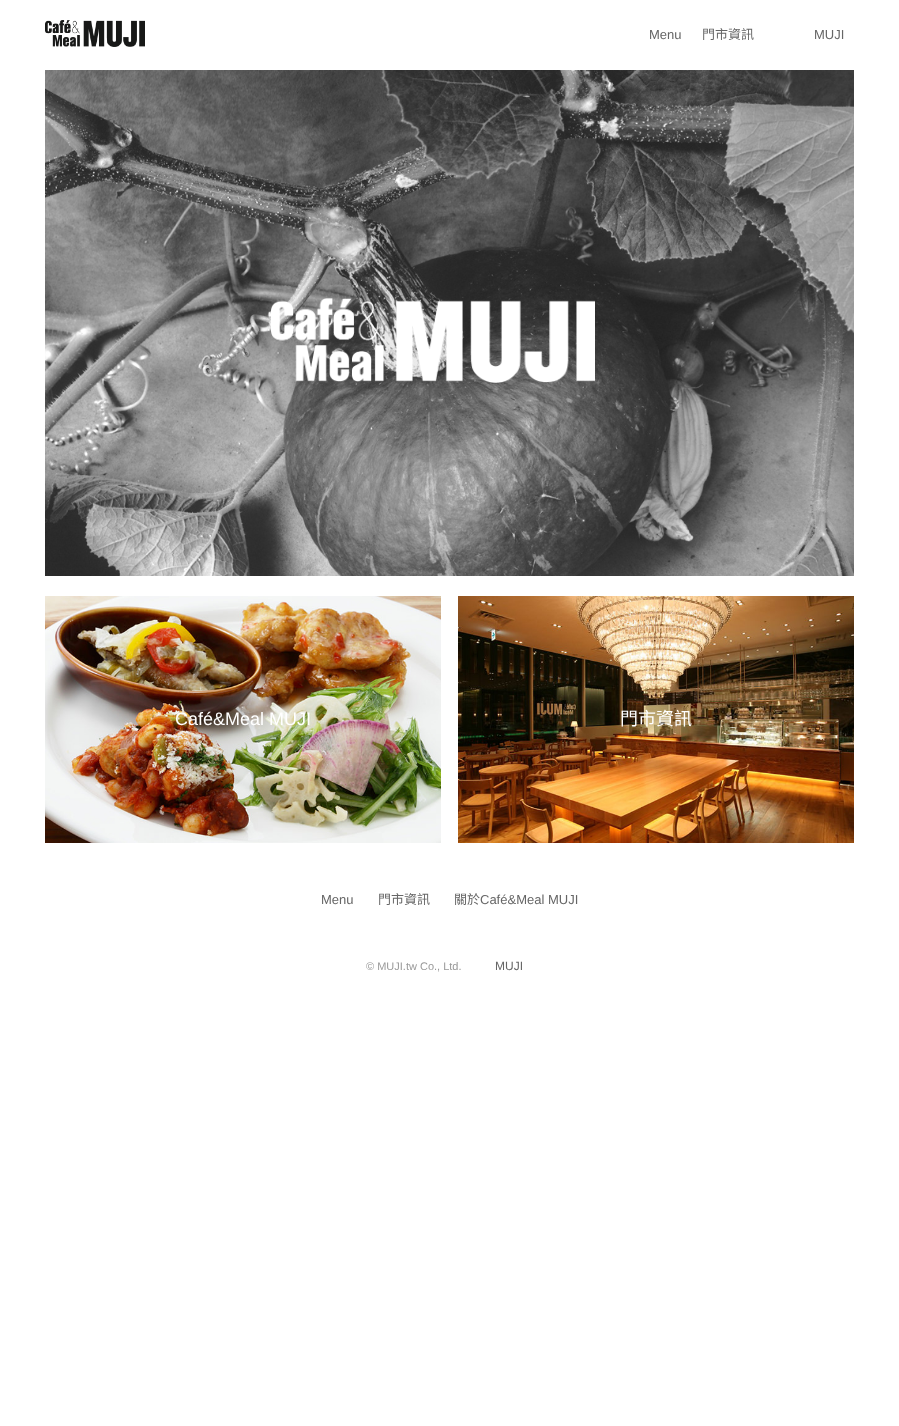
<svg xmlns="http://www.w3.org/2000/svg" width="899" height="1426">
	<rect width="100%" height="100%" fill="#FFFFFF" />
	<image x="45" y="20" width="100" height="27" href="assets/img1.png" />
	<text x="649" y="39" font-family="Liberation Sans" font-size="13" fill="#666666">Menu</text>
	<text x="702" y="39" font-family="Noto Sans CJK TC" font-size="13" fill="#666666">門市資訊</text>
	<text x="814" y="39" font-family="Liberation Sans" font-size="13" fill="#666666">MUJI</text>
	<image x="45" y="70" width="809" height="506" href="assets/img2.png" />
	<image x="271" y="298" width="324" height="85" href="assets/img3.png" />
	<image x="45" y="596" width="396" height="247" href="assets/img4.png" />
	<text x="175" y="725" font-family="Liberation Sans" font-size="18" fill="#FFFFFF">Café&amp;Meal MUJI</text>
	<image x="458" y="596" width="396" height="247" href="assets/img5.png" />
	<text x="620" y="725" font-family="Noto Sans CJK TC" font-size="18" fill="#FFFFFF">門市資訊</text>
	<text x="321" y="904" font-family="Liberation Sans" font-size="13" fill="#666666">Menu</text>
	<g font-family="Noto Sans CJK TC" font-size="13" fill="#666666">
		<text x="378" y="904">門市資訊</text>
		<text x="454" y="904">關於</text>
	</g>
	<text x="480" y="904" font-family="Liberation Sans" font-size="13" fill="#666666">Café&amp;Meal MUJI</text>
	<text x="366" y="970" font-family="Liberation Sans" font-size="11" fill="#999999">© MUJI.tw Co., Ltd.</text>
	<text x="495" y="970" font-family="Liberation Sans" font-size="12" fill="#666666">MUJI</text>
</svg>
